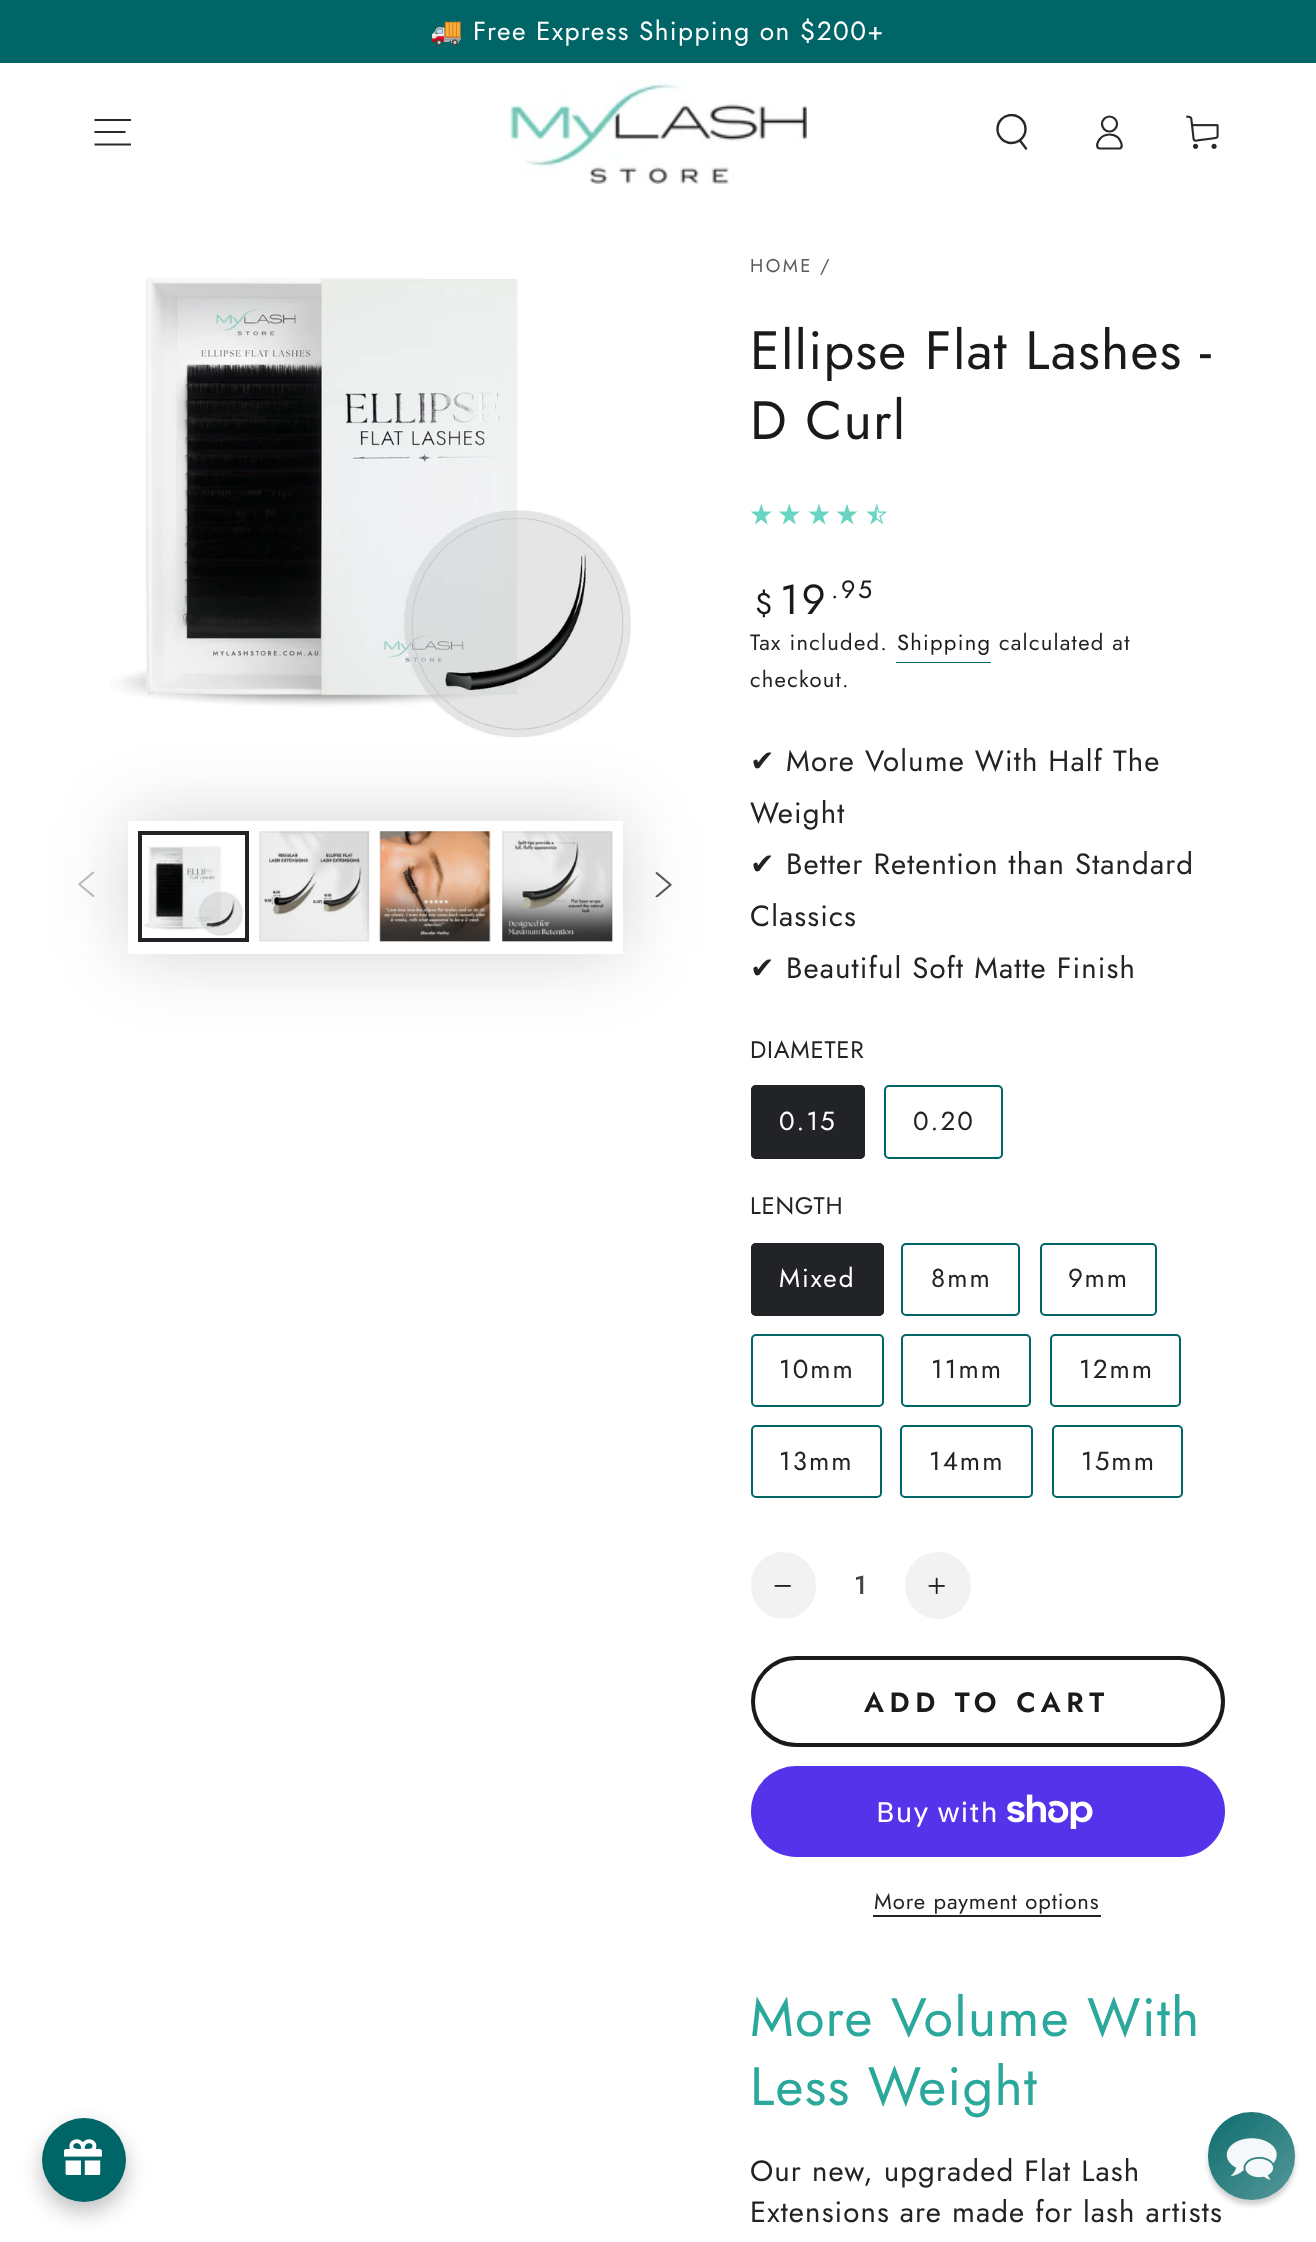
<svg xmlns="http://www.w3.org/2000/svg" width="1316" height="2242">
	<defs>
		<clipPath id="clip1"><rect x="994" y="114" width="37" height="37" /></clipPath>
		<linearGradient id="g1" gradientUnits="userSpaceOnUse" x1="1208" y1="2112" x2="1295" y2="2200"><stop offset="0" stop-color="#0D6D6E" /><stop offset="1" stop-color="#569899" /></linearGradient>
	</defs>
	<rect width="100%" height="100%" fill="#FFFFFF" />
	<rect x="42" y="2128" width="84" height="84" rx="42" fill="#000000" fill-opacity="0.25" filter="blur(10.5px)" />
	<circle cx="84" cy="2160" r="42" fill="#006566" />
	<image x="64" y="2139" width="38" height="36" href="assets/img1.png" />
	<rect x="0" y="0" width="1316" height="63" fill="#006566" />
	<text x="430" y="40" font-family="Noto Color Emoji" font-size="26.25" letter-spacing="1.4" fill="#FFFFFF">🚚</text>
	<text x="473" y="40" font-family="Jost" font-size="26.25" letter-spacing="1.4" fill="#FFFFFF">Free Express Shipping on $200+</text>
	<path d="M94.5 144.5H131M94.5 132H125.5M94.5 120H131" fill="none" stroke="#282828" stroke-width="2.1" />
	<image x="510" y="79" width="297" height="105" href="assets/img2.png" />
	<g clip-path="url(#clip1)">
		<circle cx="1011.5" cy="129" r="14" fill="none" stroke="#282828" stroke-width="2.4" />
	</g>
	<path d="M1020 140.5L1026 148.5" fill="none" stroke="#282828" stroke-width="2.4" stroke-linecap="round" />
	<path d="M1109.5 134.5C1098.5 134.5 1093.5 148.5 1100 148.5H1120C1124 146.5 1120 139.5 1118 137.5C1115.5 135.5 1112.5 134.5 1109.5 134.5Z" fill="none" stroke="#282828" stroke-width="2.2" />
	<circle cx="1109.5" cy="124" r="7.5" fill="none" stroke="#282828" stroke-width="2.2" />
	<image x="1186" y="115" width="33" height="34" href="assets/img3.png" />
	<image x="111" y="277" width="520" height="461" href="assets/img4.png" />
	<rect x="128" y="821" width="495" height="133" fill="#212326" fill-opacity="0.2" filter="blur(37px)" />
	<rect x="128" y="821" width="495" height="133" fill="#FFFFFF" />
	<image x="142" y="846" width="102" height="90" href="assets/img5.png" />
	<rect x="140" y="833" width="107" height="107" fill="none" stroke="#212326" stroke-width="4" />
	<image x="259" y="831" width="111" height="111" href="assets/img6.png" />
	<rect x="260" y="832" width="108" height="109" fill="none" stroke="#212326" stroke-opacity="0.04" stroke-width="2" />
	<image x="379" y="831" width="112" height="111" href="assets/img7.png" />
	<rect x="381" y="832" width="108" height="109" fill="none" stroke="#212326" stroke-opacity="0.04" stroke-width="2" />
	<image x="502" y="831" width="111" height="111" href="assets/img8.png" />
	<rect x="503" y="832" width="109" height="109" fill="none" stroke="#212326" stroke-opacity="0.04" stroke-width="2" />
	<image x="78" y="871" width="17" height="26" href="assets/img9.png" />
	<image x="655" y="872" width="17" height="26" href="assets/img10.png" />
	<g font-family="Jost" font-size="18.5" letter-spacing="2.5" fill="#595A5C">
		<text x="750" y="272">HOME</text>
		<text x="820" y="272">/</text>
	</g>
	<g font-family="Jost" font-size="54" letter-spacing="1.2" fill="#1A1B18">
		<text x="750" y="369">Ellipse Flat Lashes -</text>
		<text x="750" y="439">D Curl</text>
	</g>
	<image x="751" y="503" width="21" height="22" href="assets/img11.png" />
	<image x="779" y="503" width="21" height="22" href="assets/img11.png" />
	<image x="808" y="504" width="22" height="21" href="assets/img12.png" />
	<image x="836" y="504" width="22" height="21" href="assets/img12.png" />
	<image x="866" y="503" width="21" height="22" href="assets/img13.png" />
	<text x="755" y="614" font-family="Jost" font-size="30" letter-spacing="2.5" fill="#1A1B18">$</text>
	<text x="780" y="614" font-family="Jost" font-size="42" letter-spacing="2.5" fill="#1A1B18">19</text>
	<text x="831" y="598" font-family="Jost" font-size="25" letter-spacing="2.5" fill="#1A1B18">.95</text>
	<text x="750" y="650" font-family="Jost" font-size="22" letter-spacing="1.25" fill="#212326">Tax included.</text>
	<text x="897" y="650" font-family="Jost" font-size="22" letter-spacing="1.25" fill="#1A1B18">Shipping</text>
	<rect x="896" y="662" width="95" height="1" fill="#006566" />
	<g font-family="Jost" font-size="22" letter-spacing="1.25" fill="#212326">
		<text x="999" y="650">calculated at</text>
		<text x="750" y="687">checkout.</text>
	</g>
	<text x="750" y="771" font-family="DejaVu Sans" font-size="29.4" letter-spacing="1.1" fill="#212326">✔</text>
	<g font-family="Jost" font-size="29.4" letter-spacing="1.1" fill="#212326">
		<text x="786" y="771">More Volume With Half The</text>
		<text x="750" y="823">Weight</text>
	</g>
	<text x="750" y="874" font-family="DejaVu Sans" font-size="29.4" letter-spacing="1.1" fill="#212326">✔</text>
	<g font-family="Jost" font-size="29.4" letter-spacing="1.1" fill="#212326">
		<text x="786" y="874">Better Retention than Standard</text>
		<text x="750" y="926">Classics</text>
	</g>
	<text x="750" y="978" font-family="DejaVu Sans" font-size="29.4" letter-spacing="1.1" fill="#212326">✔</text>
	<text x="786" y="978" font-family="Jost" font-size="29.4" letter-spacing="1.1" fill="#212326">Beautiful Soft Matte Finish</text>
	<text x="750" y="1058" font-family="Jost" font-size="24" letter-spacing="0.75" fill="#212326">DIAMETER</text>
	<rect x="753" y="1087" width="110" height="70" rx="3" fill="none" stroke="#212326" stroke-width="4" />
	<rect x="751" y="1085" width="114" height="74" rx="5" fill="#212326" />
	<text x="779" y="1130" font-family="Jost" font-size="26" letter-spacing="2" fill="#FFFFFF">0.15</text>
	<rect x="885" y="1086" width="117" height="72" rx="4" fill="none" stroke="#006566" stroke-width="2" />
	<text x="913" y="1130" font-family="Jost" font-size="26" letter-spacing="2" fill="#212326">0.20</text>
	<text x="750" y="1214" font-family="Jost" font-size="24" letter-spacing="0.75" fill="#212326">LENGTH</text>
	<rect x="753" y="1245" width="129" height="69" rx="3" fill="none" stroke="#212326" stroke-width="4" />
	<rect x="751" y="1243" width="133" height="73" rx="5" fill="#212326" />
	<text x="779" y="1287" font-family="Jost" font-size="26" letter-spacing="2" fill="#FFFFFF">Mixed</text>
	<rect x="902" y="1244" width="117" height="71" rx="4" fill="none" stroke="#006566" stroke-width="2" />
	<text x="931" y="1287" font-family="Jost" font-size="26" letter-spacing="2" fill="#212326">8mm</text>
	<rect x="1041" y="1244" width="115" height="71" rx="4" fill="none" stroke="#006566" stroke-width="2" />
	<text x="1068" y="1287" font-family="Jost" font-size="26" letter-spacing="2" fill="#212326">9mm</text>
	<rect x="752" y="1335" width="131" height="71" rx="4" fill="none" stroke="#006566" stroke-width="2" />
	<text x="779" y="1378" font-family="Jost" font-size="26" letter-spacing="2" fill="#212326">10mm</text>
	<rect x="902" y="1335" width="128" height="71" rx="4" fill="none" stroke="#006566" stroke-width="2" />
	<text x="931" y="1378" font-family="Jost" font-size="26" letter-spacing="2" fill="#212326">11mm</text>
	<rect x="1051" y="1335" width="129" height="71" rx="4" fill="none" stroke="#006566" stroke-width="2" />
	<text x="1079" y="1378" font-family="Jost" font-size="26" letter-spacing="2" fill="#212326">12mm</text>
	<rect x="752" y="1426" width="129" height="71" rx="4" fill="none" stroke="#006566" stroke-width="2" />
	<text x="779" y="1470" font-family="Jost" font-size="26" letter-spacing="2" fill="#212326">13mm</text>
	<rect x="901" y="1426" width="131" height="71" rx="4" fill="none" stroke="#006566" stroke-width="2" />
	<text x="929" y="1470" font-family="Jost" font-size="26" letter-spacing="2" fill="#212326">14mm</text>
	<rect x="1053" y="1426" width="129" height="71" rx="4" fill="none" stroke="#006566" stroke-width="2" />
	<text x="1081" y="1470" font-family="Jost" font-size="26" letter-spacing="2" fill="#212326">15mm</text>
	<rect x="751" y="1552" width="65" height="67" rx="32.5" fill="#F2F2F2" />
	<image x="774" y="1585" width="17" height="2" href="assets/img14.png" />
	<text x="854" y="1594" font-family="Jost" font-size="26" font-weight="500" fill="#424447">1</text>
	<rect x="905" y="1552" width="66" height="67" rx="33" fill="#F2F2F2" />
	<image x="928" y="1577" width="17" height="17" href="assets/img15.png" />
	<rect x="753" y="1658" width="470" height="87" rx="43.5" fill="none" stroke="#1A1B18" stroke-width="4" />
	<text x="864" y="1712" font-family="Jost" font-size="28" font-weight="600" letter-spacing="5.6" fill="#1A1B18">ADD TO CART</text>
	<rect x="751" y="1766" width="474" height="91" rx="45.5" fill="#5433EB" />
	<text x="876" y="1822" font-family="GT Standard" font-size="28" letter-spacing="1.1" fill="#FFFFFF">Buy with</text>
	<image x="1007" y="1794" width="86" height="35" href="assets/img16.png" />
	<text x="874" y="1909" font-family="Jost" font-size="22" letter-spacing="0.9" fill="#212326">More payment options</text>
	<rect x="873" y="1915" width="228" height="2" fill="#212326" />
	<g font-family="Jost" font-size="54" letter-spacing="1.2" fill="#2AA89B">
		<text x="750" y="2036">More Volume With</text>
		<text x="750" y="2105">Less Weight</text>
	</g>
	<g font-family="Jost" font-size="29.4" letter-spacing="1.1" fill="#212326">
		<text x="750" y="2181">Our new, upgraded Flat Lash</text>
		<text x="750" y="2222">Extensions are made for lash artists</text>
	</g>
	<rect x="1208" y="2118" width="87" height="87" rx="43.5" fill="#0D0D0D" fill-opacity="0.2" filter="blur(2.5px)" />
	<rect x="1208" y="2112" width="87" height="88" rx="43.5" fill="url(#g1)" />
	<image x="1226" y="2138" width="51" height="42" href="assets/img17.png" />
</svg>
